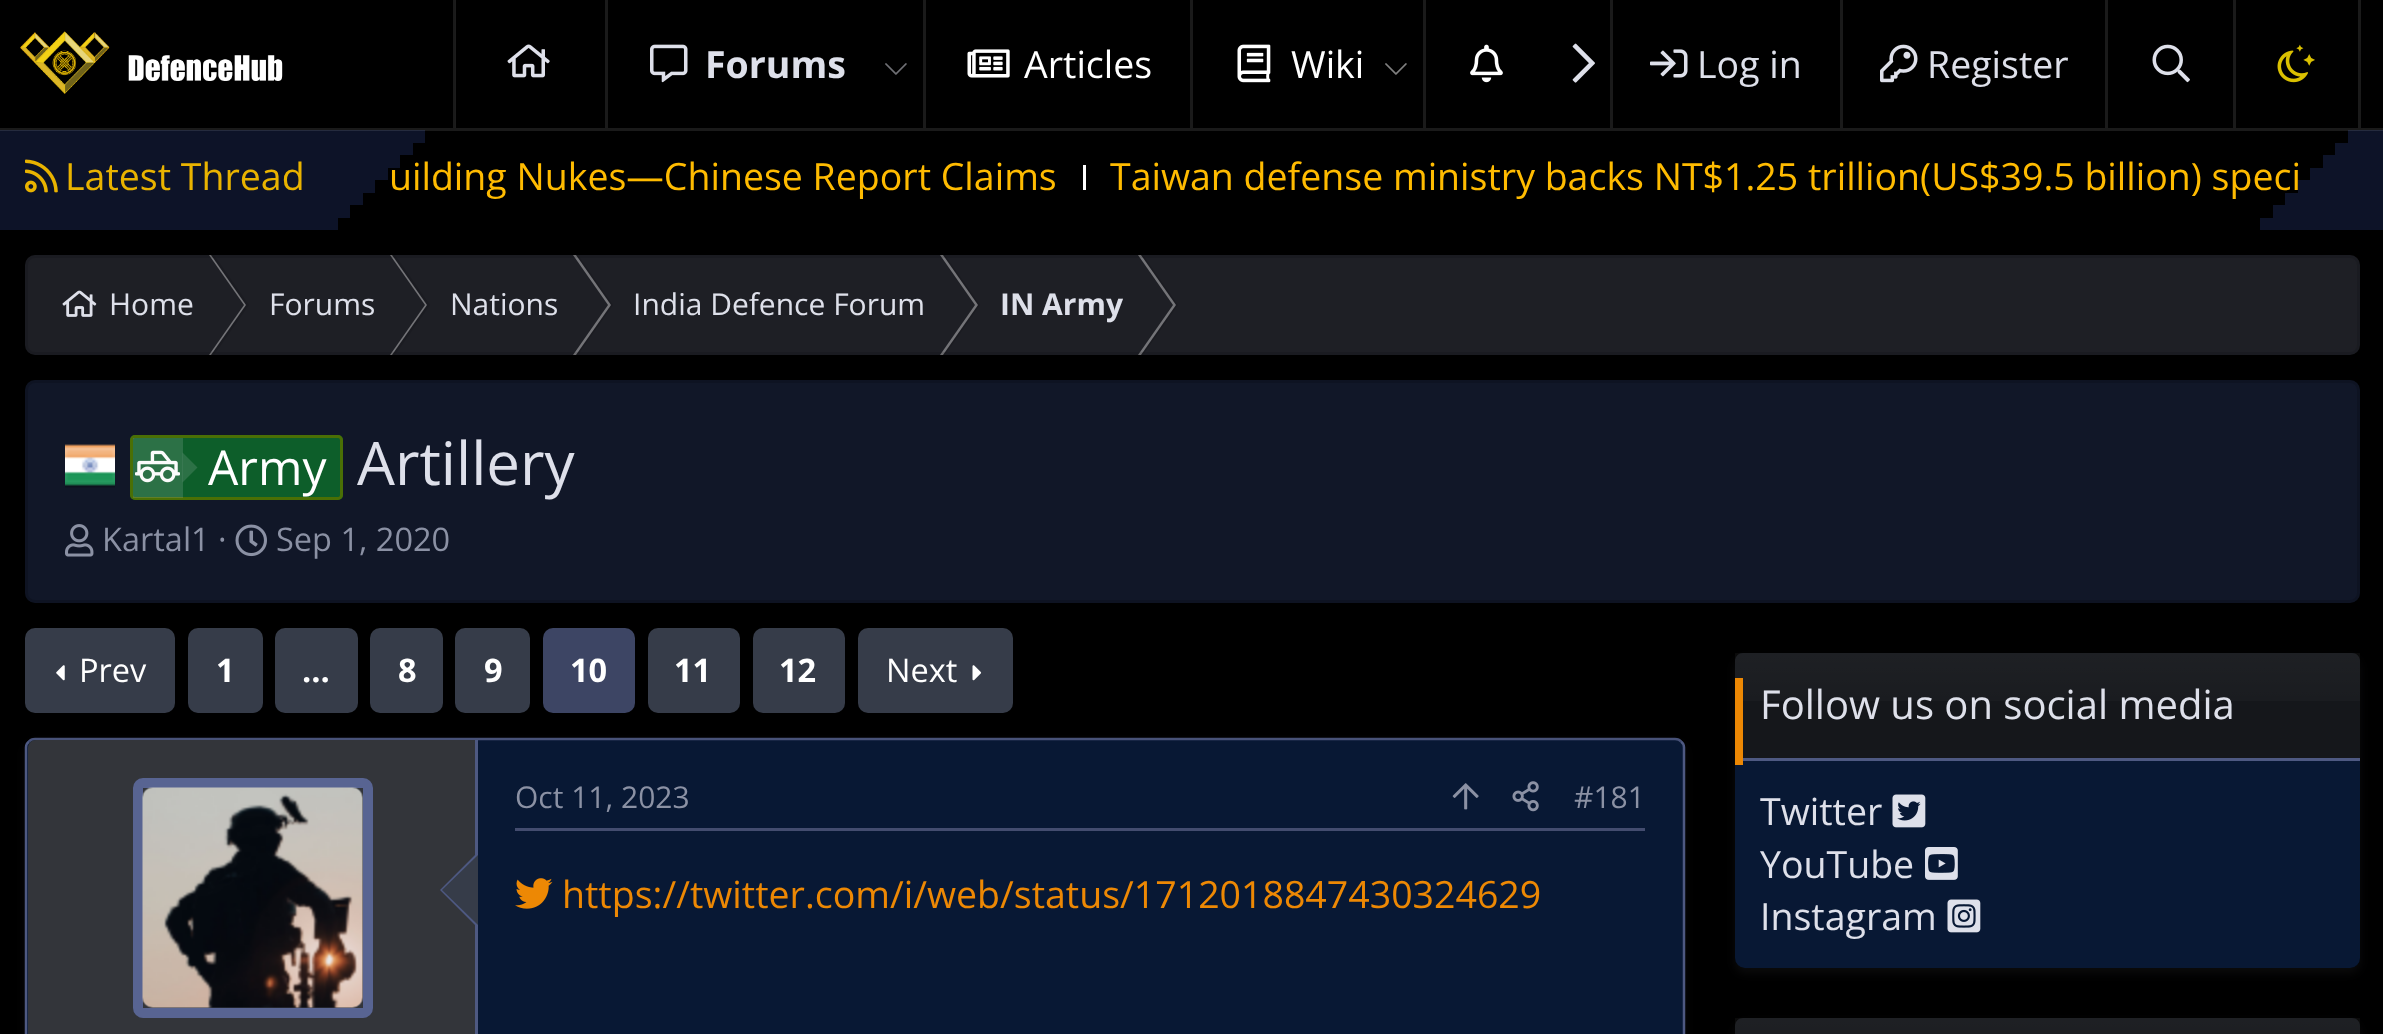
<svg xmlns="http://www.w3.org/2000/svg" width="2383" height="1034">
	<defs>
		<linearGradient id="g1" gradientUnits="userSpaceOnUse" x1="236" y1="438" x2="236" y2="498"><stop offset="0" stop-color="#0D5E2A" stop-opacity="0.2" /><stop offset="1" stop-color="#0D5E2A" stop-opacity="0" /></linearGradient>
		<linearGradient id="g2" gradientUnits="userSpaceOnUse" x1="2048" y1="653" x2="2048" y2="758"><stop offset="0" stop-color="#FFFFFF" stop-opacity="0.04" /><stop offset="1" stop-color="#FFFFFF" stop-opacity="0" /></linearGradient>
		<linearGradient id="g3" gradientUnits="userSpaceOnUse" x1="2048" y1="1018" x2="2048" y2="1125"><stop offset="0" stop-color="#FFFFFF" stop-opacity="0.04" /><stop offset="1" stop-color="#FFFFFF" stop-opacity="0" /></linearGradient>
	</defs>
	<rect width="100%" height="100%" fill="#000000" />
	<rect x="0" y="128" width="2383" height="2" fill="#1A1A1A" />
	<image x="20" y="31" width="263" height="63" href="assets/img1.png" />
	<rect x="453" y="0" width="2" height="128" fill="#1A1A1A" />
	<rect x="455" y="0" width="1" height="128" fill="#1C1C1C" />
	<image x="507" y="44" width="43" height="34" href="assets/img2.png" />
	<rect x="605" y="0" width="3" height="128" fill="#1A1A1A" />
	<image x="650" y="44" width="38" height="39" href="assets/img3.png" />
	<text x="705" y="78" font-family="Open Sans" font-size="37.5" font-weight="700" fill="#DEE0EA">Forums</text>
	<image x="885" y="63" width="22" height="12" href="assets/img4.png" />
	<rect x="923" y="0" width="3" height="128" fill="#1A1A1A" />
	<image x="967" y="49" width="43" height="29" href="assets/img5.png" />
	<text x="1024" y="78" font-family="Open Sans" font-size="37.5" fill="#FFFFFF">Articles</text>
	<rect x="1190" y="0" width="3" height="128" fill="#1A1A1A" />
	<image x="1237" y="44" width="34" height="39" href="assets/img6.png" />
	<text x="1291" y="78" font-family="Open Sans" font-size="37.5" fill="#FFFFFF">Wiki</text>
	<image x="1385" y="63" width="22" height="12" href="assets/img7.png" />
	<rect x="1423" y="0" width="3" height="128" fill="#1A1A1A" />
	<image x="1470" y="44" width="33" height="39" href="assets/img8.png" />
	<image x="1572" y="43" width="23" height="40" href="assets/img9.png" />
	<rect x="1610" y="0" width="3" height="128" fill="#1A1A1A" />
	<image x="1650" y="49" width="38" height="29" href="assets/img10.png" />
	<text x="1697" y="78" font-family="Open Sans" font-size="37.5" fill="#DEE0EA">Log in</text>
	<rect x="1840" y="0" width="3" height="128" fill="#1A1A1A" />
	<image x="1880" y="44" width="38" height="39" href="assets/img11.png" />
	<text x="1927" y="78" font-family="Open Sans" font-size="37.5" fill="#DEE0EA">Register</text>
	<rect x="2358" y="0" width="3" height="128" fill="#1A1A1A" />
	<rect x="2105" y="0" width="3" height="128" fill="#1A1A1A" />
	<image x="2152" y="44" width="38" height="39" href="assets/img12.png" />
	<rect x="2233" y="0" width="3" height="128" fill="#1A1A1A" />
	<image x="2277" y="44" width="38" height="39" href="assets/img13.png" />
	<rect x="425" y="130" width="1923" height="1" fill="#1A1A1A" />
	<rect x="0" y="131" width="425" height="12" fill="#0D1328" />
	<rect x="0" y="130" width="425" height="1" fill="#252B3E" />
	<rect x="0" y="143" width="413" height="12" fill="#0D1328" />
	<text x="389" y="190" font-family="Open Sans" font-size="37.5" fill="#FFBB00">uilding Nukes—Chinese Report Claims</text>
	<rect x="0" y="155" width="400" height="13" fill="#0D1328" />
	<rect x="0" y="168" width="388" height="12" fill="#0D1328" />
	<rect x="0" y="180" width="375" height="13" fill="#0D1328" />
	<rect x="0" y="193" width="363" height="12" fill="#0D1328" />
	<rect x="0" y="205" width="350" height="13" fill="#0D1328" />
	<rect x="0" y="218" width="338" height="12" fill="#0D1328" />
	<rect x="2348" y="131" width="35" height="12" fill="#0D1328" />
	<rect x="2348" y="130" width="35" height="1" fill="#252B3E" />
	<rect x="2335" y="143" width="48" height="12" fill="#0D1328" />
	<rect x="2323" y="155" width="60" height="13" fill="#0D1328" />
	<rect x="2310" y="168" width="73" height="12" fill="#0D1328" />
	<rect x="2298" y="180" width="85" height="13" fill="#0D1328" />
	<text x="1110" y="190" font-family="Open Sans" font-size="37.5" fill="#FFBB00">Taiwan defense ministry backs NT$1.25 trillion(US$39.5 billion) speci</text>
	<rect x="2285" y="193" width="98" height="12" fill="#0D1328" />
	<rect x="2273" y="205" width="110" height="13" fill="#0D1328" />
	<rect x="2260" y="218" width="123" height="12" fill="#0D1328" />
	<image x="25" y="159" width="33" height="34" href="assets/img14.png" />
	<text x="65" y="190" font-family="Open Sans" font-size="37.5" fill="#E9B300">Latest Thread</text>
	<rect x="1083" y="165" width="3" height="25" fill="#FFFFFF" />
	<rect x="25" y="255" width="2335" height="100" rx="10" fill="#1E1F25" />
	<image x="62" y="290" width="35" height="27" href="assets/img15.png" />
	<path d="M209 255H211L246 305H244Z" fill="#747478" />
	<path d="M211 255H214L249 305H246Z" fill="#000000" fill-opacity="0.1" />
	<path d="M244 305H246L211 355H209Z" fill="#747478" />
	<path d="M246 305H249L214 355H211Z" fill="#000000" fill-opacity="0.1" />
	<path d="M390 255H392L427 305H425Z" fill="#747478" />
	<path d="M392 255H395L430 305H427Z" fill="#000000" fill-opacity="0.1" />
	<path d="M425 305H427L392 355H390Z" fill="#747478" />
	<path d="M427 305H430L395 355H392Z" fill="#000000" fill-opacity="0.1" />
	<path d="M573 255H576L611 305H608Z" fill="#747478" />
	<path d="M576 255H578L613 305H611Z" fill="#000000" fill-opacity="0.1" />
	<path d="M608 305H611L576 355H573Z" fill="#747478" />
	<path d="M611 305H613L578 355H576Z" fill="#000000" fill-opacity="0.1" />
	<path d="M940 255H943L978 305H975Z" fill="#747478" />
	<path d="M943 255H945L980 305H978Z" fill="#000000" fill-opacity="0.1" />
	<path d="M975 305H978L943 355H940Z" fill="#747478" />
	<path d="M978 305H980L945 355H943Z" fill="#000000" fill-opacity="0.1" />
	<path d="M1138 255H1141L1176 305H1173Z" fill="#747478" />
	<path d="M1141 255H1143L1178 305H1176Z" fill="#000000" fill-opacity="0.1" />
	<path d="M1173 305H1176L1141 355H1138Z" fill="#747478" />
	<path d="M1176 305H1178L1143 355H1141Z" fill="#000000" fill-opacity="0.1" />
	<rect x="26.5" y="256.5" width="2332" height="97" rx="8.5" fill="none" stroke="#000000" stroke-opacity="0.1" stroke-width="3" />
	<g font-family="Open Sans" font-size="30" fill="#DEE0EA">
		<text x="109" y="315">Home</text>
		<text x="269" y="315">Forums</text>
		<text x="450" y="315">Nations</text>
		<text x="633" y="315">India Defence Forum</text>
	</g>
	<text x="1000" y="315" font-family="Open Sans" font-size="30" font-weight="700" fill="#DEE0EA">IN Army</text>
	<rect x="25" y="380" width="2335" height="223" rx="10" fill="#111728" />
	<rect x="26.5" y="381.5" width="2332" height="220" rx="8.5" fill="none" stroke="#000000" stroke-opacity="0.15" stroke-width="3" />
	<image x="65" y="444" width="50" height="44" href="assets/img16.png" />
	<rect x="130" y="435" width="213" height="65" rx="5" fill="#0D5E2A" />
	<rect x="130" y="438" width="213" height="1" fill="url(#g1)" />
	<rect x="131.5" y="436.5" width="210" height="62" rx="3.5" fill="none" stroke="#4A6F05" stroke-width="3" />
	<rect x="133" y="438" width="50" height="60" fill="#DEE0EA" fill-opacity="0.15" />
	<image x="135" y="450" width="45" height="33" href="assets/img17.png" />
	<path d="M182.5 482.5V452.5L197.5 467.5Z" fill="#DEE0EA" fill-opacity="0.15" />
	<text x="208" y="485" font-family="Open Sans" font-size="48" fill="#FFFFFF">Army</text>
	<text x="357" y="485" font-family="Open Sans" font-size="60" fill="#DEE0EA">Artillery</text>
	<image x="65" y="524" width="29" height="33" href="assets/img18.png" />
	<text x="102" y="551" font-family="Open Sans" font-size="32.5" fill="#8B91A4">Kartal1 ·</text>
	<image x="235" y="524" width="32" height="33" href="assets/img19.png" />
	<text x="276" y="551" font-family="Open Sans" font-size="32.5" fill="#8B91A4">Sep 1, 2020</text>
	<rect x="25" y="628" width="150" height="85" rx="10" fill="#363C49" />
	<image x="56" y="665" width="9" height="16" href="assets/img20.png" />
	<text x="79" y="682" font-family="Open Sans" font-size="32.5" fill="#FFFFFF">Prev</text>
	<rect x="188" y="628" width="75" height="85" rx="10" fill="#363C49" />
	<text x="216" y="682" font-family="Open Sans" font-size="32.5" font-weight="700" fill="#FFFFFF">1</text>
	<rect x="275" y="628" width="83" height="85" rx="10" fill="#363C49" />
	<text x="302" y="682" font-family="Open Sans" font-size="32.5" font-weight="700" fill="#FFFFFF">…</text>
	<rect x="370" y="628" width="73" height="85" rx="10" fill="#363C49" />
	<text x="398" y="682" font-family="Open Sans" font-size="32.5" font-weight="700" fill="#FFFFFF">8</text>
	<rect x="455" y="628" width="75" height="85" rx="10" fill="#363C49" />
	<text x="484" y="682" font-family="Open Sans" font-size="32.5" font-weight="700" fill="#FFFFFF">9</text>
	<rect x="543" y="628" width="92" height="85" rx="10" fill="#3D4564" />
	<text x="570" y="682" font-family="Open Sans" font-size="32.5" font-weight="700" fill="#FFFFFF">10</text>
	<rect x="648" y="628" width="92" height="85" rx="10" fill="#363C49" />
	<text x="674" y="682" font-family="Open Sans" font-size="32.5" font-weight="700" fill="#FFFFFF">11</text>
	<rect x="753" y="628" width="92" height="85" rx="10" fill="#363C49" />
	<text x="779" y="682" font-family="Open Sans" font-size="32.5" font-weight="700" fill="#FFFFFF">12</text>
	<rect x="858" y="628" width="155" height="85" rx="10" fill="#363C49" />
	<text x="886" y="682" font-family="Open Sans" font-size="32.5" fill="#FFFFFF">Next</text>
	<image x="972" y="665" width="10" height="16" href="assets/img21.png" />
	<rect x="25" y="743" width="1660" height="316" rx="10" fill="#6C6F73" fill-opacity="0.1" filter="blur(5px)" />
	<rect x="25" y="738" width="1660" height="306" rx="10" fill="#081834" />
	<path d="M29 741.5C30.5 739.5 32.5 739 35 739H1675C1677.5 739 1679.5 739.5 1681 741.5" fill="none" stroke="#485278" stroke-width="2.5" />
	<path d="M1681 741.5C1683 743 1684 745 1684 747.5V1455C1684 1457.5 1683 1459.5 1681 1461" fill="none" stroke="#4E5982" stroke-width="2.5" />
	<path d="M29 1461C27 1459.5 26 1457.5 26 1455V747.5C26 745 27 743 29 741.5" fill="none" stroke="#4E5982" stroke-width="2.5" />
	<path d="M36 740H478V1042H36C31.5 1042 28 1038.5 28 1034V748C28 743.5 31.5 740 36 740Z" fill="#33353A" />
	<rect x="475" y="740" width="3" height="294" fill="#4E5982" />
	<rect x="138" y="783" width="230" height="230" rx="5" fill="none" stroke="#586492" stroke-width="10" />
	<rect x="143" y="788" width="220" height="220" rx="10" fill="#363C49" />
	<image x="142" y="787" width="221" height="221" href="assets/img22.png" />
	<path d="M478 852V928L440 890Z" fill="#4E5982" />
	<path d="M478 855V925L442 890Z" fill="#363C49" />
	<rect x="515" y="828" width="1130" height="3" fill="#434C6F" />
	<text x="515" y="808" font-family="Open Sans" font-size="30" fill="#8B91A4">Oct 11, 2023</text>
	<image x="1452" y="783" width="27" height="27" href="assets/img23.png" />
	<image x="1512" y="781" width="27" height="31" href="assets/img24.png" />
	<text x="1574" y="808" font-family="Open Sans" font-size="30" fill="#8B91A4">#181</text>
	<image x="515" y="878" width="38" height="31" href="assets/img25.png" />
	<text x="562" y="908" font-family="Open Sans" font-size="37.5" fill="#ED8804">https://twitter.com/i/web/status/1712018847430324629</text>
	<rect x="1735" y="658" width="625" height="315" rx="10" fill="#6C6F73" fill-opacity="0.1" filter="blur(5px)" />
	<rect x="1735" y="653" width="625" height="315" rx="10" fill="#081834" />
	<path d="M1743 653H2352C2356.5 653 2360 656.5 2360 661V760H1735V661C1735 656.5 1738.5 653 1743 653Z" fill="#15171B" />
	<rect x="1735" y="653" width="625" height="48" fill="url(#g2)" />
	<rect x="1735" y="758" width="625" height="3" fill="#4E5982" />
	<rect x="1735" y="678" width="8" height="87" fill="#ED8804" />
	<text x="1760" y="719" font-family="Open Sans" font-size="40" fill="#DEE0EA">Follow us on social media</text>
	<text x="1760" y="825" font-family="Open Sans" font-size="37.5" fill="#DEE0EA">Twitter</text>
	<image x="1892" y="794" width="34" height="34" href="assets/img26.png" />
	<text x="1760" y="878" font-family="Open Sans" font-size="37.5" fill="#DEE0EA">YouTube</text>
	<image x="1925" y="847" width="33" height="33" href="assets/img27.png" />
	<text x="1760" y="930" font-family="Open Sans" font-size="37.5" fill="#DEE0EA">Instagram</text>
	<image x="1947" y="899" width="34" height="34" href="assets/img28.png" />
	<rect x="1735" y="1023" width="625" height="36" rx="10" fill="#6C6F73" fill-opacity="0.1" filter="blur(5px)" />
	<path d="M1743 1018H2352C2356.5 1018 2360 1021.5 2360 1026V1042H1735V1026C1735 1021.5 1738.5 1018 1743 1018Z" fill="#15171B" />
	<rect x="1735" y="1018" width="625" height="16" fill="url(#g3)" />
</svg>
